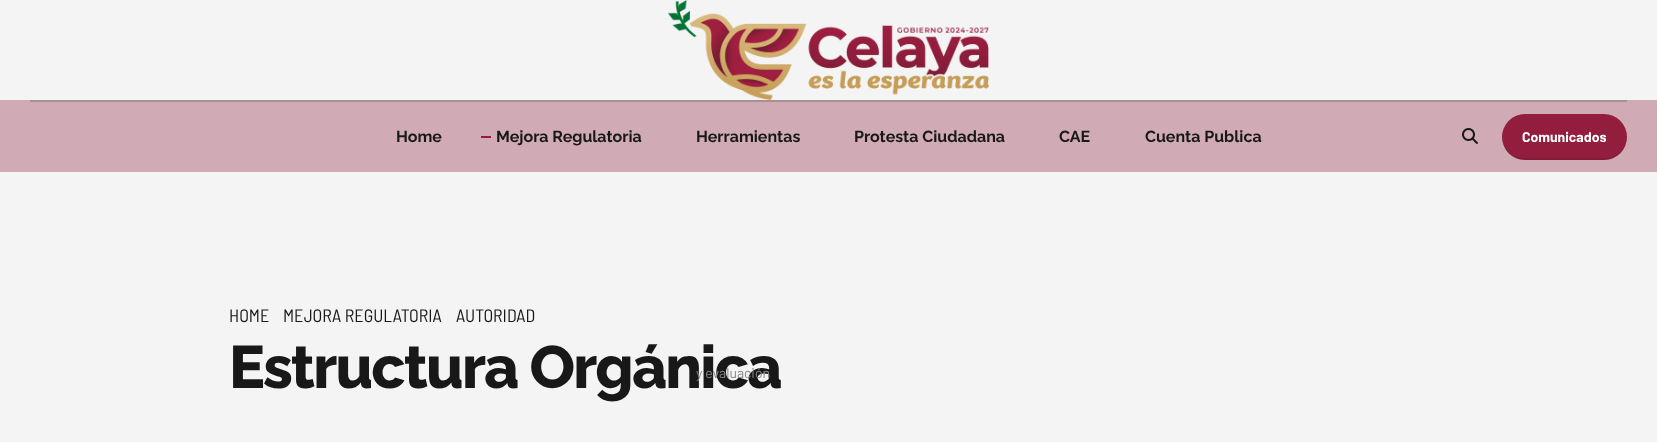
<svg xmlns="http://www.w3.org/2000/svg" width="1657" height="442">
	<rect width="100%" height="100%" fill="#F4F4F4" />
	<image x="668" y="0" width="321" height="100" href="assets/img1.png" />
	<rect x="0" y="100" width="1657" height="72" fill="#D0ABB5" />
	<rect x="30" y="100" width="1597" height="2" fill="#AB8E96" />
	<text x="396" y="142" font-family="Raleway" font-size="16" font-weight="700" fill="#181818">Home</text>
	<rect x="481" y="136" width="10" height="2" fill="#931D3D" />
	<g font-family="Raleway" font-size="16" font-weight="700" fill="#181818">
		<text x="496" y="142">Mejora Regulatoria</text>
		<text x="696" y="142">Herramientas</text>
	</g>
	<text x="229" y="388" font-family="Raleway" font-size="60" font-weight="800" letter-spacing="-1.75" fill="#181818">Estructura Orgánica</text>
	<text x="696" y="378" font-family="Barlow" font-size="14" fill="#878787">y evaluación</text>
	<g font-family="Raleway" font-size="16" font-weight="700" fill="#181818">
		<text x="854" y="142">Protesta Ciudadana</text>
		<text x="1059" y="142">CAE</text>
		<text x="1145" y="142">Cuenta Publica</text>
	</g>
	<image x="1462" y="128" width="16" height="16" href="assets/img2.png" />
	<rect x="1502" y="114" width="125" height="46" rx="23" fill="#931D3D" />
	<path d="M1502 136C1502 147 1509 157 1520 160H1538H1609C1620 157 1627 147 1627 136C1626 149 1617 158 1604 158H1525C1512 158 1503 149 1502 136Z" fill="#181818" fill-opacity="0.15" />
	<text x="1522" y="142" font-family="Barlow" font-size="14" font-weight="700" fill="#FFFFFF">Comunicados</text>
	<g font-family="Barlow Semi Condensed" font-size="18" fill="#181818">
		<text x="229" y="322">HOME</text>
		<text x="283" y="322">MEJORA REGULATORIA</text>
		<text x="456" y="322">AUTORIDAD</text>
	</g>
</svg>
